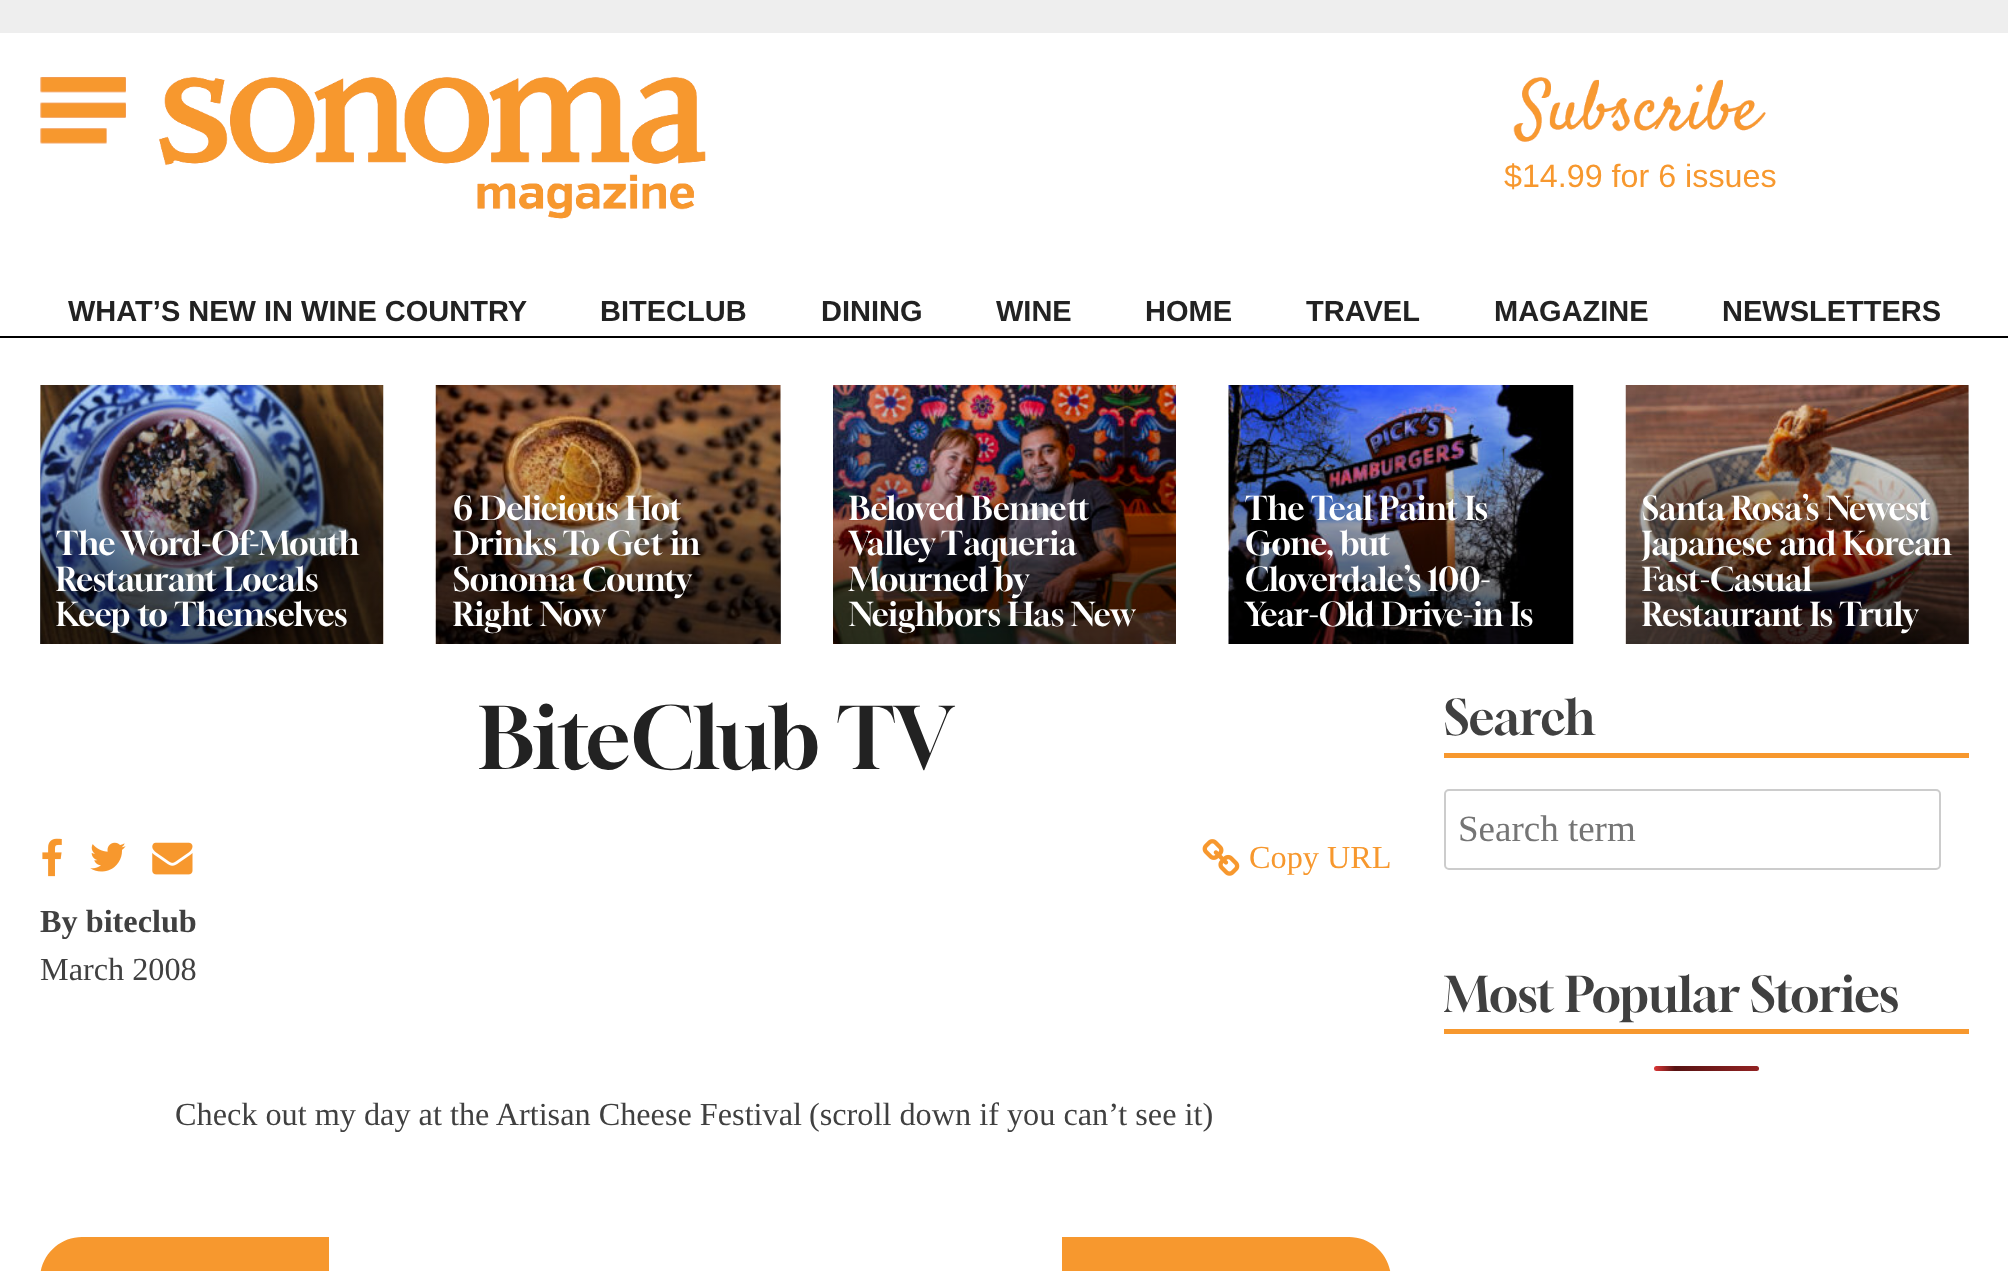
<svg xmlns="http://www.w3.org/2000/svg" width="2008" height="1271">
	<defs>
		<linearGradient id="g1" gradientUnits="userSpaceOnUse" x1="212" y1="385" x2="212" y2="644"><stop offset="0" stop-color="#000000" stop-opacity="0" /><stop offset="0.25" stop-color="#000000" stop-opacity="0.15" /><stop offset="0.5" stop-color="#000000" stop-opacity="0.3" /><stop offset="0.75" stop-color="#000000" stop-opacity="0.55" /><stop offset="1" stop-color="#000000" stop-opacity="0.6" /></linearGradient>
		<linearGradient id="g2" gradientUnits="userSpaceOnUse" x1="608" y1="385" x2="608" y2="644"><stop offset="0" stop-color="#000000" stop-opacity="0" /><stop offset="0.25" stop-color="#000000" stop-opacity="0.15" /><stop offset="0.5" stop-color="#000000" stop-opacity="0.3" /><stop offset="0.75" stop-color="#000000" stop-opacity="0.55" /><stop offset="1" stop-color="#000000" stop-opacity="0.6" /></linearGradient>
		<linearGradient id="g3" gradientUnits="userSpaceOnUse" x1="1797" y1="385" x2="1797" y2="644"><stop offset="0" stop-color="#000000" stop-opacity="0" /><stop offset="0.25" stop-color="#000000" stop-opacity="0.15" /><stop offset="0.5" stop-color="#000000" stop-opacity="0.3" /><stop offset="0.75" stop-color="#000000" stop-opacity="0.55" /><stop offset="1" stop-color="#000000" stop-opacity="0.6" /></linearGradient>
		<clipPath id="clip1"><rect x="1444" y="644" width="525" height="625" /></clipPath>
		<linearGradient id="g4" gradientUnits="userSpaceOnUse" x1="1654" y1="1068" x2="1864" y2="1068"><stop offset="0" stop-color="#DD3737" /><stop offset="0.1" stop-color="#571313" /><stop offset="1" stop-color="#DD3737" /></linearGradient>
	</defs>
	<rect width="100%" height="100%" fill="#FFFFFF" />
	<rect x="0" y="0" width="2008" height="33" fill="#EEEEEE" />
	<image x="40" y="77" width="86" height="67" href="assets/img1.png" />
	<image x="159" y="77" width="547" height="142" href="assets/img2.png" />
	<image x="1513" y="77" width="253" height="65" href="assets/img3.png" />
	<text x="1504" y="187" font-family="Liberation Sans" font-size="32.25" fill="#F7982E">$14.99 for 6 issues</text>
	<rect x="0" y="336" width="2008" height="2" fill="#000000" />
	<g font-family="Liberation Sans" font-size="29" font-weight="700" fill="#222222">
		<text x="68" y="321">WHAT’S NEW IN WINE COUNTRY</text>
		<text x="600" y="321">BITECLUB</text>
		<text x="821" y="321">DINING</text>
		<text x="996" y="321">WINE</text>
		<text x="1145" y="321">HOME</text>
		<text x="1306" y="321">TRAVEL</text>
		<text x="1494" y="321">MAGAZINE</text>
		<text x="1722" y="321">NEWSLETTERS</text>
	</g>
	<rect x="40" y="385" width="1" height="259" fill="#EEEEEE" />
	<image x="40" y="385" width="344" height="259" href="assets/img4.png" />
	<rect x="40" y="394" width="343" height="250" fill="url(#g1)" />
	<g font-family="Gloock" font-size="32.25" fill="#FFFFFF">
		<text x="56" y="555">The Word-Of-Mouth</text>
		<text x="56" y="591">Restaurant Locals</text>
		<text x="56" y="626">Keep to Themselves</text>
	</g>
	<rect x="780" y="385" width="1" height="259" fill="#EEEEEE" />
	<image x="435" y="385" width="346" height="259" href="assets/img5.png" />
	<rect x="436" y="394" width="345" height="250" fill="url(#g2)" />
	<g font-family="Gloock" font-size="32.25" fill="#FFFFFF">
		<text x="453" y="520">6 Delicious Hot</text>
		<text x="453" y="555">Drinks To Get in</text>
		<text x="453" y="591">Sonoma County</text>
		<text x="453" y="626">Right Now</text>
	</g>
	<image x="833" y="385" width="343" height="259" href="assets/img6.png" />
	<g font-family="Gloock" font-size="32.25" fill="#FFFFFF">
		<text x="849" y="520">Beloved Bennett</text>
		<text x="849" y="555">Valley Taqueria</text>
		<text x="849" y="591">Mourned by</text>
		<text x="849" y="626">Neighbors Has New</text>
	</g>
	<image x="1228" y="385" width="346" height="259" href="assets/img7.png" />
	<g font-family="Gloock" font-size="32.25" fill="#FFFFFF">
		<text x="1245" y="520">The Teal Paint Is</text>
		<text x="1245" y="555">Gone, but</text>
		<text x="1245" y="591">Cloverdale’s 100-</text>
		<text x="1245" y="626">Year-Old Drive-in Is</text>
	</g>
	<rect x="1968" y="385" width="1" height="259" fill="#EEEEEE" />
	<image x="1625" y="385" width="344" height="259" href="assets/img8.png" />
	<rect x="1626" y="394" width="343" height="250" fill="url(#g3)" />
	<g font-family="Gloock" font-size="32.25" fill="#FFFFFF">
		<text x="1642" y="520">Santa Rosa’s Newest</text>
		<text x="1642" y="555">Japanese and Korean</text>
		<text x="1642" y="591">Fast-Casual</text>
		<text x="1642" y="626">Restaurant Is Truly</text>
	</g>
	<text x="479" y="769" font-family="Gloock" font-size="84.5" fill="#222222">BiteClub TV</text>
	<image x="42" y="838" width="20" height="39" href="assets/img9.png" />
	<image x="90" y="842" width="36" height="30" href="assets/img10.png" />
	<image x="152" y="842" width="41" height="33" href="assets/img11.png" />
	<image x="1202" y="839" width="38" height="37" href="assets/img12.png" />
	<text x="1249" y="868" font-family="Liberation Serif" font-size="32.25" fill="#F7982E">Copy URL</text>
	<text x="40" y="932" font-family="Liberation Serif" font-size="32.25" font-weight="700" fill="#404040">By biteclub</text>
	<g font-family="Liberation Serif" font-size="32.25" fill="#404040">
		<text x="40" y="980">March 2008</text>
		<text x="175" y="1125">Check out my day at the Artisan Cheese Festival</text>
		<text x="809" y="1125">(scroll down if you can’t see it)</text>
	</g>
	<path d="M82 1237H329V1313H82C59 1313 40 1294 40 1271V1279C40 1256 59 1237 82 1237Z" fill="#F7982E" />
	<path d="M1062 1237H1349C1372 1237 1391 1256 1391 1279V1271C1391 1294 1372 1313 1349 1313H1062Z" fill="#F7982E" />
	<rect x="1444" y="753" width="525" height="5" fill="#F7982E" />
	<text x="1444" y="735" font-family="Gloock" font-size="48.25" fill="#404040">Search</text>
	<rect x="1445" y="790" width="495" height="79" rx="4" fill="none" stroke="#CCCCCC" stroke-width="2" />
	<text x="1458" y="841" font-family="Liberation Serif" font-size="37" fill="#757575">Search term</text>
	<rect x="1444" y="1029" width="525" height="5" fill="#F7982E" />
	<g clip-path="url(#clip1)">
		<text x="1444" y="1012" font-family="Gloock" font-size="48.25" fill="#404040">Most Popular Stories</text>
	</g>
	<rect x="1654" y="1066" width="105" height="5" rx="2.5" fill="url(#g4)" />
</svg>
